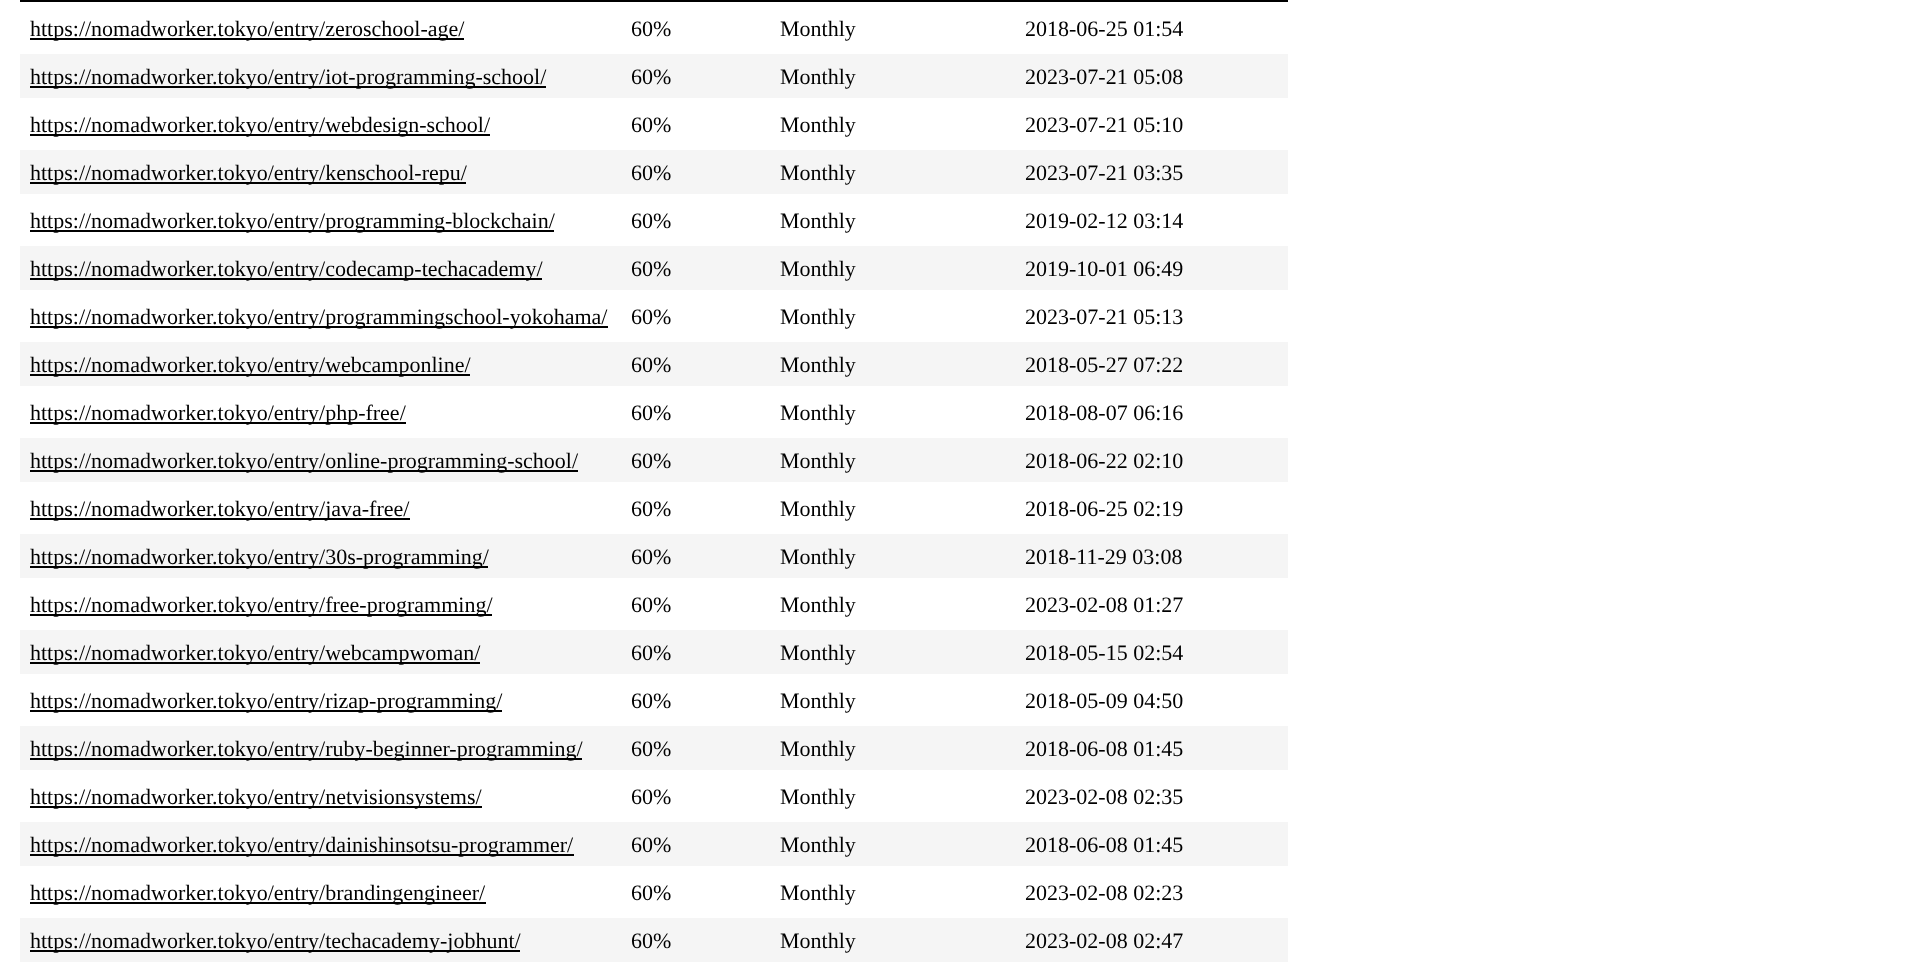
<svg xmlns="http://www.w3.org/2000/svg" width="1927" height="978">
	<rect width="100%" height="100%" fill="#FFFFFF" />
	<rect x="20" y="0" width="1268" height="2" fill="#000000" />
	<rect x="30" y="38" width="434" height="2" fill="#000000" />
	<g font-family="Liberation Serif" font-size="22" fill="#000000">
		<text x="30" y="36">https://nomadworker.tokyo/entry/zeroschool-age/</text>
		<text x="631" y="36">60%</text>
		<text x="780" y="36">Monthly</text>
		<text x="1025" y="36">2018-06-25 01:54</text>
	</g>
	<rect x="20" y="54" width="1268" height="44" fill="#F5F5F5" />
	<rect x="30" y="86" width="516" height="2" fill="#000000" />
	<g font-family="Liberation Serif" font-size="22" fill="#000000">
		<text x="30" y="84">https://nomadworker.tokyo/entry/iot-programming-school/</text>
		<text x="631" y="84">60%</text>
		<text x="780" y="84">Monthly</text>
		<text x="1025" y="84">2023-07-21 05:08</text>
	</g>
	<rect x="30" y="134" width="460" height="2" fill="#000000" />
	<g font-family="Liberation Serif" font-size="22" fill="#000000">
		<text x="30" y="132">https://nomadworker.tokyo/entry/webdesign-school/</text>
		<text x="631" y="132">60%</text>
		<text x="780" y="132">Monthly</text>
		<text x="1025" y="132">2023-07-21 05:10</text>
	</g>
	<rect x="20" y="150" width="1268" height="44" fill="#F5F5F5" />
	<rect x="30" y="182" width="436" height="2" fill="#000000" />
	<g font-family="Liberation Serif" font-size="22" fill="#000000">
		<text x="30" y="180">https://nomadworker.tokyo/entry/kenschool-repu/</text>
		<text x="631" y="180">60%</text>
		<text x="780" y="180">Monthly</text>
		<text x="1025" y="180">2023-07-21 03:35</text>
	</g>
	<rect x="30" y="230" width="524" height="2" fill="#000000" />
	<g font-family="Liberation Serif" font-size="22" fill="#000000">
		<text x="30" y="228">https://nomadworker.tokyo/entry/programming-blockchain/</text>
		<text x="631" y="228">60%</text>
		<text x="780" y="228">Monthly</text>
		<text x="1025" y="228">2019-02-12 03:14</text>
	</g>
	<rect x="20" y="246" width="1268" height="44" fill="#F5F5F5" />
	<rect x="30" y="278" width="512" height="2" fill="#000000" />
	<g font-family="Liberation Serif" font-size="22" fill="#000000">
		<text x="30" y="276">https://nomadworker.tokyo/entry/codecamp-techacademy/</text>
		<text x="631" y="276">60%</text>
		<text x="780" y="276">Monthly</text>
		<text x="1025" y="276">2019-10-01 06:49</text>
	</g>
	<rect x="30" y="326" width="578" height="2" fill="#000000" />
	<g font-family="Liberation Serif" font-size="22" fill="#000000">
		<text x="30" y="324">https://nomadworker.tokyo/entry/programmingschool-yokohama/</text>
		<text x="631" y="324">60%</text>
		<text x="780" y="324">Monthly</text>
		<text x="1025" y="324">2023-07-21 05:13</text>
	</g>
	<rect x="20" y="342" width="1268" height="44" fill="#F5F5F5" />
	<rect x="30" y="374" width="440" height="2" fill="#000000" />
	<g font-family="Liberation Serif" font-size="22" fill="#000000">
		<text x="30" y="372">https://nomadworker.tokyo/entry/webcamponline/</text>
		<text x="631" y="372">60%</text>
		<text x="780" y="372">Monthly</text>
		<text x="1025" y="372">2018-05-27 07:22</text>
	</g>
	<rect x="30" y="422" width="376" height="2" fill="#000000" />
	<g font-family="Liberation Serif" font-size="22" fill="#000000">
		<text x="30" y="420">https://nomadworker.tokyo/entry/php-free/</text>
		<text x="631" y="420">60%</text>
		<text x="780" y="420">Monthly</text>
		<text x="1025" y="420">2018-08-07 06:16</text>
	</g>
	<rect x="20" y="438" width="1268" height="44" fill="#F5F5F5" />
	<rect x="30" y="470" width="548" height="2" fill="#000000" />
	<g font-family="Liberation Serif" font-size="22" fill="#000000">
		<text x="30" y="468">https://nomadworker.tokyo/entry/online-programming-school/</text>
		<text x="631" y="468">60%</text>
		<text x="780" y="468">Monthly</text>
		<text x="1025" y="468">2018-06-22 02:10</text>
	</g>
	<rect x="30" y="518" width="380" height="2" fill="#000000" />
	<g font-family="Liberation Serif" font-size="22" fill="#000000">
		<text x="30" y="516">https://nomadworker.tokyo/entry/java-free/</text>
		<text x="631" y="516">60%</text>
		<text x="780" y="516">Monthly</text>
		<text x="1025" y="516">2018-06-25 02:19</text>
	</g>
	<rect x="20" y="534" width="1268" height="44" fill="#F5F5F5" />
	<rect x="30" y="566" width="458" height="2" fill="#000000" />
	<g font-family="Liberation Serif" font-size="22" fill="#000000">
		<text x="30" y="564">https://nomadworker.tokyo/entry/30s-programming/</text>
		<text x="631" y="564">60%</text>
		<text x="780" y="564">Monthly</text>
		<text x="1025" y="564">2018-11-29 03:08</text>
	</g>
	<rect x="30" y="614" width="462" height="2" fill="#000000" />
	<g font-family="Liberation Serif" font-size="22" fill="#000000">
		<text x="30" y="612">https://nomadworker.tokyo/entry/free-programming/</text>
		<text x="631" y="612">60%</text>
		<text x="780" y="612">Monthly</text>
		<text x="1025" y="612">2023-02-08 01:27</text>
	</g>
	<rect x="20" y="630" width="1268" height="44" fill="#F5F5F5" />
	<rect x="30" y="662" width="450" height="2" fill="#000000" />
	<g font-family="Liberation Serif" font-size="22" fill="#000000">
		<text x="30" y="660">https://nomadworker.tokyo/entry/webcampwoman/</text>
		<text x="631" y="660">60%</text>
		<text x="780" y="660">Monthly</text>
		<text x="1025" y="660">2018-05-15 02:54</text>
	</g>
	<rect x="30" y="710" width="472" height="2" fill="#000000" />
	<g font-family="Liberation Serif" font-size="22" fill="#000000">
		<text x="30" y="708">https://nomadworker.tokyo/entry/rizap-programming/</text>
		<text x="631" y="708">60%</text>
		<text x="780" y="708">Monthly</text>
		<text x="1025" y="708">2018-05-09 04:50</text>
	</g>
	<rect x="20" y="726" width="1268" height="44" fill="#F5F5F5" />
	<rect x="30" y="758" width="552" height="2" fill="#000000" />
	<g font-family="Liberation Serif" font-size="22" fill="#000000">
		<text x="30" y="756">https://nomadworker.tokyo/entry/ruby-beginner-programming/</text>
		<text x="631" y="756">60%</text>
		<text x="780" y="756">Monthly</text>
		<text x="1025" y="756">2018-06-08 01:45</text>
	</g>
	<rect x="30" y="806" width="452" height="2" fill="#000000" />
	<g font-family="Liberation Serif" font-size="22" fill="#000000">
		<text x="30" y="804">https://nomadworker.tokyo/entry/netvisionsystems/</text>
		<text x="631" y="804">60%</text>
		<text x="780" y="804">Monthly</text>
		<text x="1025" y="804">2023-02-08 02:35</text>
	</g>
	<rect x="20" y="822" width="1268" height="44" fill="#F5F5F5" />
	<rect x="30" y="854" width="544" height="2" fill="#000000" />
	<g font-family="Liberation Serif" font-size="22" fill="#000000">
		<text x="30" y="852">https://nomadworker.tokyo/entry/dainishinsotsu-programmer/</text>
		<text x="631" y="852">60%</text>
		<text x="780" y="852">Monthly</text>
		<text x="1025" y="852">2018-06-08 01:45</text>
	</g>
	<rect x="30" y="902" width="456" height="2" fill="#000000" />
	<g font-family="Liberation Serif" font-size="22" fill="#000000">
		<text x="30" y="900">https://nomadworker.tokyo/entry/brandingengineer/</text>
		<text x="631" y="900">60%</text>
		<text x="780" y="900">Monthly</text>
		<text x="1025" y="900">2023-02-08 02:23</text>
	</g>
	<rect x="20" y="918" width="1268" height="44" fill="#F5F5F5" />
	<rect x="30" y="950" width="490" height="2" fill="#000000" />
	<g font-family="Liberation Serif" font-size="22" fill="#000000">
		<text x="30" y="948">https://nomadworker.tokyo/entry/techacademy-jobhunt/</text>
		<text x="631" y="948">60%</text>
		<text x="780" y="948">Monthly</text>
		<text x="1025" y="948">2023-02-08 02:47</text>
	</g>
</svg>
